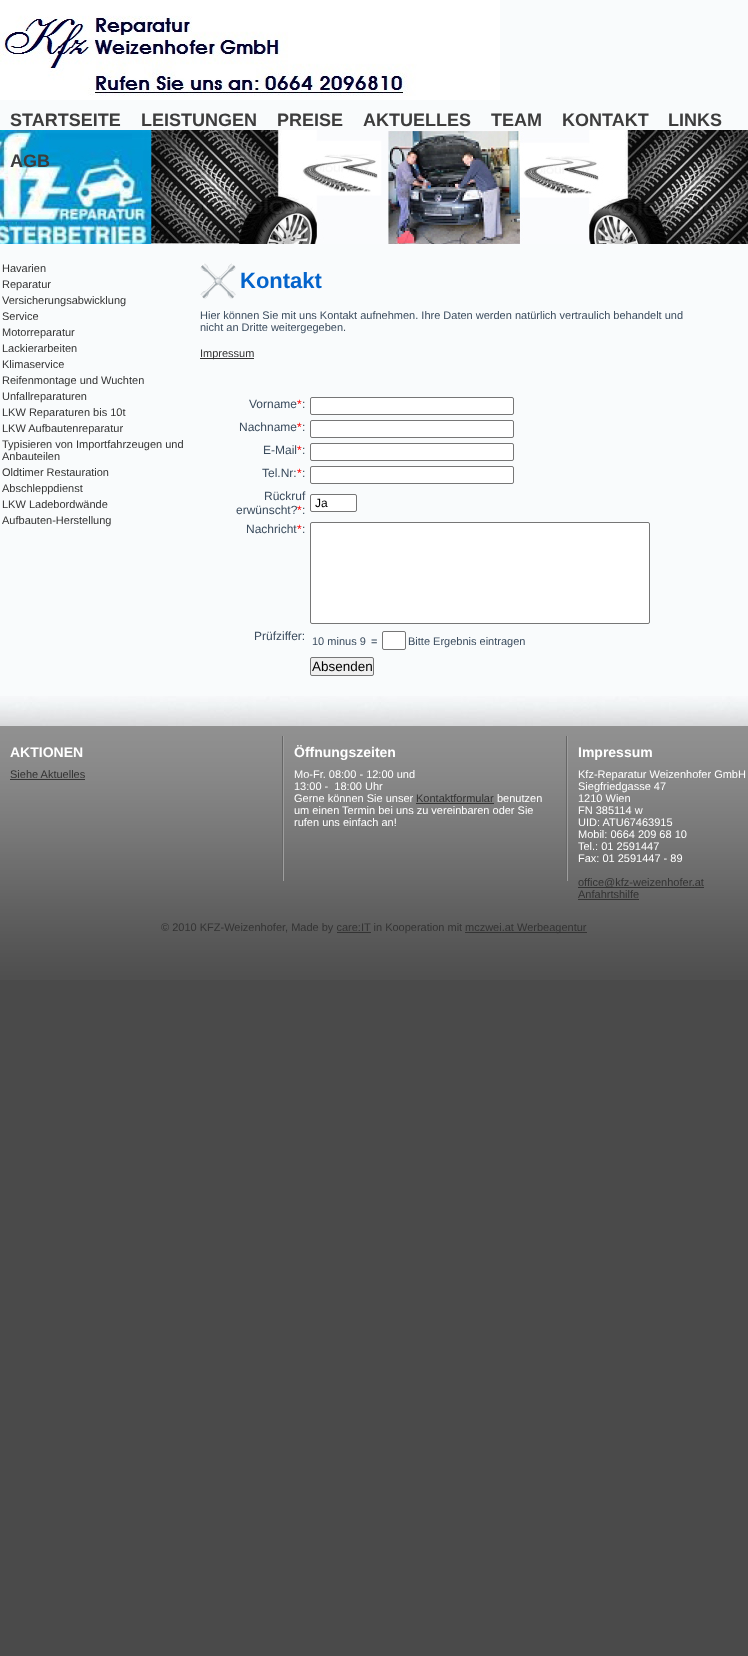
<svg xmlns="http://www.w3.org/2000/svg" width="748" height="1656">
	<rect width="100%" height="100%" fill="#4A4A4A" />
	<rect x="0" y="0" width="748" height="696" fill="#F9FBFC" />
	<image x="0" y="130" width="748" height="114" href="assets/img1.png" />
	<image x="0" y="0" width="500" height="100" href="assets/img2.png" />
	<g font-family="Liberation Sans" font-size="18" font-weight="700" fill="#3D3D3D">
		<text x="10" y="126">STARTSEITE</text>
		<text x="141" y="126">LEISTUNGEN</text>
		<text x="277" y="126">PREISE</text>
		<text x="363" y="126">AKTUELLES</text>
		<text x="491" y="126">TEAM</text>
		<text x="562" y="126">KONTAKT</text>
		<text x="668" y="126">LINKS</text>
		<text x="10" y="167">AGB</text>
	</g>
	<g font-family="Liberation Sans" font-size="11" fill="#333333">
		<text x="2" y="272">Havarien</text>
		<text x="2" y="288">Reparatur</text>
		<text x="2" y="304">Versicherungsabwicklung</text>
		<text x="2" y="320">Service</text>
		<text x="2" y="336">Motorreparatur</text>
		<text x="2" y="352">Lackierarbeiten</text>
		<text x="2" y="368">Klimaservice</text>
		<text x="2" y="384">Reifenmontage und Wuchten</text>
		<text x="2" y="400">Unfallreparaturen</text>
		<text x="2" y="416">LKW Reparaturen bis 10t</text>
		<text x="2" y="432">LKW Aufbautenreparatur</text>
		<text x="2" y="448">Typisieren von Importfahrzeugen und</text>
		<text x="2" y="460">Anbauteilen</text>
		<text x="2" y="476">Oldtimer Restauration</text>
		<text x="2" y="492">Abschleppdienst</text>
		<text x="2" y="508">LKW Ladebordwände</text>
		<text x="2" y="524">Aufbauten-Herstellung</text>
	</g>
	<image x="200" y="263" width="36" height="36" href="assets/img3.png" />
	<text x="240" y="288" font-family="Liberation Sans" font-size="22" font-weight="700" fill="#0464CB">Kontakt</text>
	<g font-family="Liberation Sans" font-size="11" fill="#3B4C5E">
		<text x="200" y="319">Hier können Sie mit uns Kontakt aufnehmen. Ihre Daten werden natürlich vertraulich behandelt und</text>
		<text x="200" y="331">nicht an Dritte weitergegeben.</text>
	</g>
	<rect x="200" y="358" width="54" height="1" fill="#333333" />
	<text x="200" y="357" font-family="Liberation Sans" font-size="11" fill="#333333">Impressum</text>
	<text x="249" y="408" font-family="Liberation Sans" font-size="12" fill="#3B4C5E">Vorname</text>
	<text x="297" y="408" font-family="Liberation Sans" font-size="12" fill="#FF0000">*</text>
	<text x="302" y="408" font-family="Liberation Sans" font-size="12" fill="#3B4C5E">:</text>
	<rect x="310.5" y="397.5" width="203" height="17" rx="1.5" fill="#FFFFFF" stroke="#767676" />
	<text x="239" y="431" font-family="Liberation Sans" font-size="12" fill="#3B4C5E">Nachname</text>
	<text x="297" y="431" font-family="Liberation Sans" font-size="12" fill="#FF0000">*</text>
	<text x="302" y="431" font-family="Liberation Sans" font-size="12" fill="#3B4C5E">:</text>
	<rect x="310.5" y="420.5" width="203" height="17" rx="1.5" fill="#FFFFFF" stroke="#767676" />
	<text x="263" y="454" font-family="Liberation Sans" font-size="12" fill="#3B4C5E">E-Mail</text>
	<text x="297" y="454" font-family="Liberation Sans" font-size="12" fill="#FF0000">*</text>
	<text x="302" y="454" font-family="Liberation Sans" font-size="12" fill="#3B4C5E">:</text>
	<rect x="310.5" y="443.5" width="203" height="17" rx="1.5" fill="#FFFFFF" stroke="#767676" />
	<text x="262" y="477" font-family="Liberation Sans" font-size="12" fill="#3B4C5E">Tel.Nr:</text>
	<text x="297" y="477" font-family="Liberation Sans" font-size="12" fill="#FF0000">*</text>
	<text x="302" y="477" font-family="Liberation Sans" font-size="12" fill="#3B4C5E">:</text>
	<rect x="310.5" y="466.5" width="203" height="17" rx="1.5" fill="#FFFFFF" stroke="#767676" />
	<g font-family="Liberation Sans" font-size="12" fill="#3B4C5E">
		<text x="264" y="500">Rückruf</text>
		<text x="236" y="514">erwünscht?</text>
	</g>
	<text x="297" y="514" font-family="Liberation Sans" font-size="12" fill="#FF0000">*</text>
	<text x="302" y="514" font-family="Liberation Sans" font-size="12" fill="#3B4C5E">:</text>
	<rect x="310.5" y="494.5" width="46" height="17" rx="1.5" fill="#FFFFFF" stroke="#767676" />
	<text x="315" y="507" font-family="Liberation Sans" font-size="12" fill="#000000">Ja</text>
	<text x="246" y="533" font-family="Liberation Sans" font-size="12" fill="#3B4C5E">Nachricht</text>
	<text x="297" y="533" font-family="Liberation Sans" font-size="12" fill="#FF0000">*</text>
	<text x="302" y="533" font-family="Liberation Sans" font-size="12" fill="#3B4C5E">:</text>
	<rect x="310.5" y="522.5" width="339" height="101" rx="1.5" fill="#FFFFFF" stroke="#767676" />
	<text x="254" y="640" font-family="Liberation Sans" font-size="12" fill="#3B4C5E">Prüfziffer:</text>
	<g font-family="Liberation Sans" font-size="11" fill="#3B4C5E">
		<text x="312" y="645">10 minus 9</text>
		<text x="371" y="645">=</text>
	</g>
	<rect x="382.5" y="631.5" width="23" height="18" rx="1.5" fill="#FFFFFF" stroke="#767676" />
	<text x="408" y="645" font-family="Liberation Sans" font-size="11" fill="#3B4C5E">Bitte Ergebnis eintragen</text>
	<rect x="310.5" y="657.5" width="63" height="18" rx="1.5" fill="#EFEFEF" stroke="#767676" />
	<text x="312" y="671" font-family="Liberation Sans" font-size="13.5" fill="#000000">Absenden</text>
	<image x="0" y="696" width="748" height="30" href="assets/img4.png" />
	<image x="0" y="726" width="748" height="254" href="assets/img5.png" />
	<rect x="282" y="736" width="1" height="145" fill="#666666" />
	<text x="10" y="757" font-family="Liberation Sans" font-size="14" font-weight="700" fill="#FFFFFF">AKTIONEN</text>
	<text x="10" y="778" font-family="Liberation Sans" font-size="11" fill="#333333">Siehe Aktuelles</text>
	<rect x="10" y="779" width="75" height="1" fill="#333333" />
	<rect x="566" y="736" width="1" height="145" fill="#666666" />
	<rect x="283" y="736" width="1" height="145" fill="#9E9E9E" />
	<text x="294" y="757" font-family="Liberation Sans" font-size="14" font-weight="700" fill="#FFFFFF">Öffnungszeiten</text>
	<g font-family="Liberation Sans" font-size="11" fill="#FFFFFF">
		<text x="294" y="778">Mo-Fr. 08:00 - 12:00 und</text>
		<text x="294" y="790" xml:space="preserve">13:00 -  18:00 Uhr</text>
		<text x="294" y="802">Gerne können Sie unser</text>
	</g>
	<text x="416" y="802" font-family="Liberation Sans" font-size="11" fill="#333333">Kontaktformular</text>
	<rect x="416" y="803" width="78" height="1" fill="#333333" />
	<g font-family="Liberation Sans" font-size="11" fill="#FFFFFF">
		<text x="497" y="802">benutzen</text>
		<text x="294" y="814">um einen Termin bei uns zu vereinbaren oder Sie</text>
		<text x="294" y="826">rufen uns einfach an!</text>
	</g>
	<rect x="567" y="736" width="1" height="145" fill="#9E9E9E" />
	<text x="578" y="757" font-family="Liberation Sans" font-size="14" font-weight="700" fill="#FFFFFF">Impressum</text>
	<g font-family="Liberation Sans" font-size="11" fill="#FFFFFF">
		<text x="578" y="778">Kfz-Reparatur Weizenhofer GmbH</text>
		<text x="578" y="790">Siegfriedgasse 47</text>
		<text x="578" y="802">1210 Wien</text>
		<text x="578" y="814">FN 385114 w</text>
		<text x="578" y="826">UID: ATU67463915</text>
		<text x="578" y="838">Mobil: 0664 209 68 10</text>
		<text x="578" y="850">Tel.: 01 2591447</text>
		<text x="578" y="862">Fax: 01 2591447 - 89</text>
	</g>
	<rect x="578" y="887" width="126" height="1" fill="#333333" />
	<g font-family="Liberation Sans" font-size="11" fill="#333333">
		<text x="578" y="886">office@kfz-weizenhofer.at</text>
		<text x="578" y="898">Anfahrtshilfe</text>
	</g>
	<rect x="578" y="899" width="61" height="1" fill="#333333" />
	<text x="161" y="931" font-family="Liberation Sans" font-size="11" fill="#333333">© 2010 KFZ-Weizenhofer, Made by care:IT in Kooperation mit</text>
	<rect x="465" y="932" width="122" height="1" fill="#333333" />
	<text x="465" y="931" font-family="Liberation Sans" font-size="11" fill="#333333">mczwei.at Werbeagentur</text>
	<rect x="337" y="932" width="34" height="1" fill="#333333" />
</svg>
